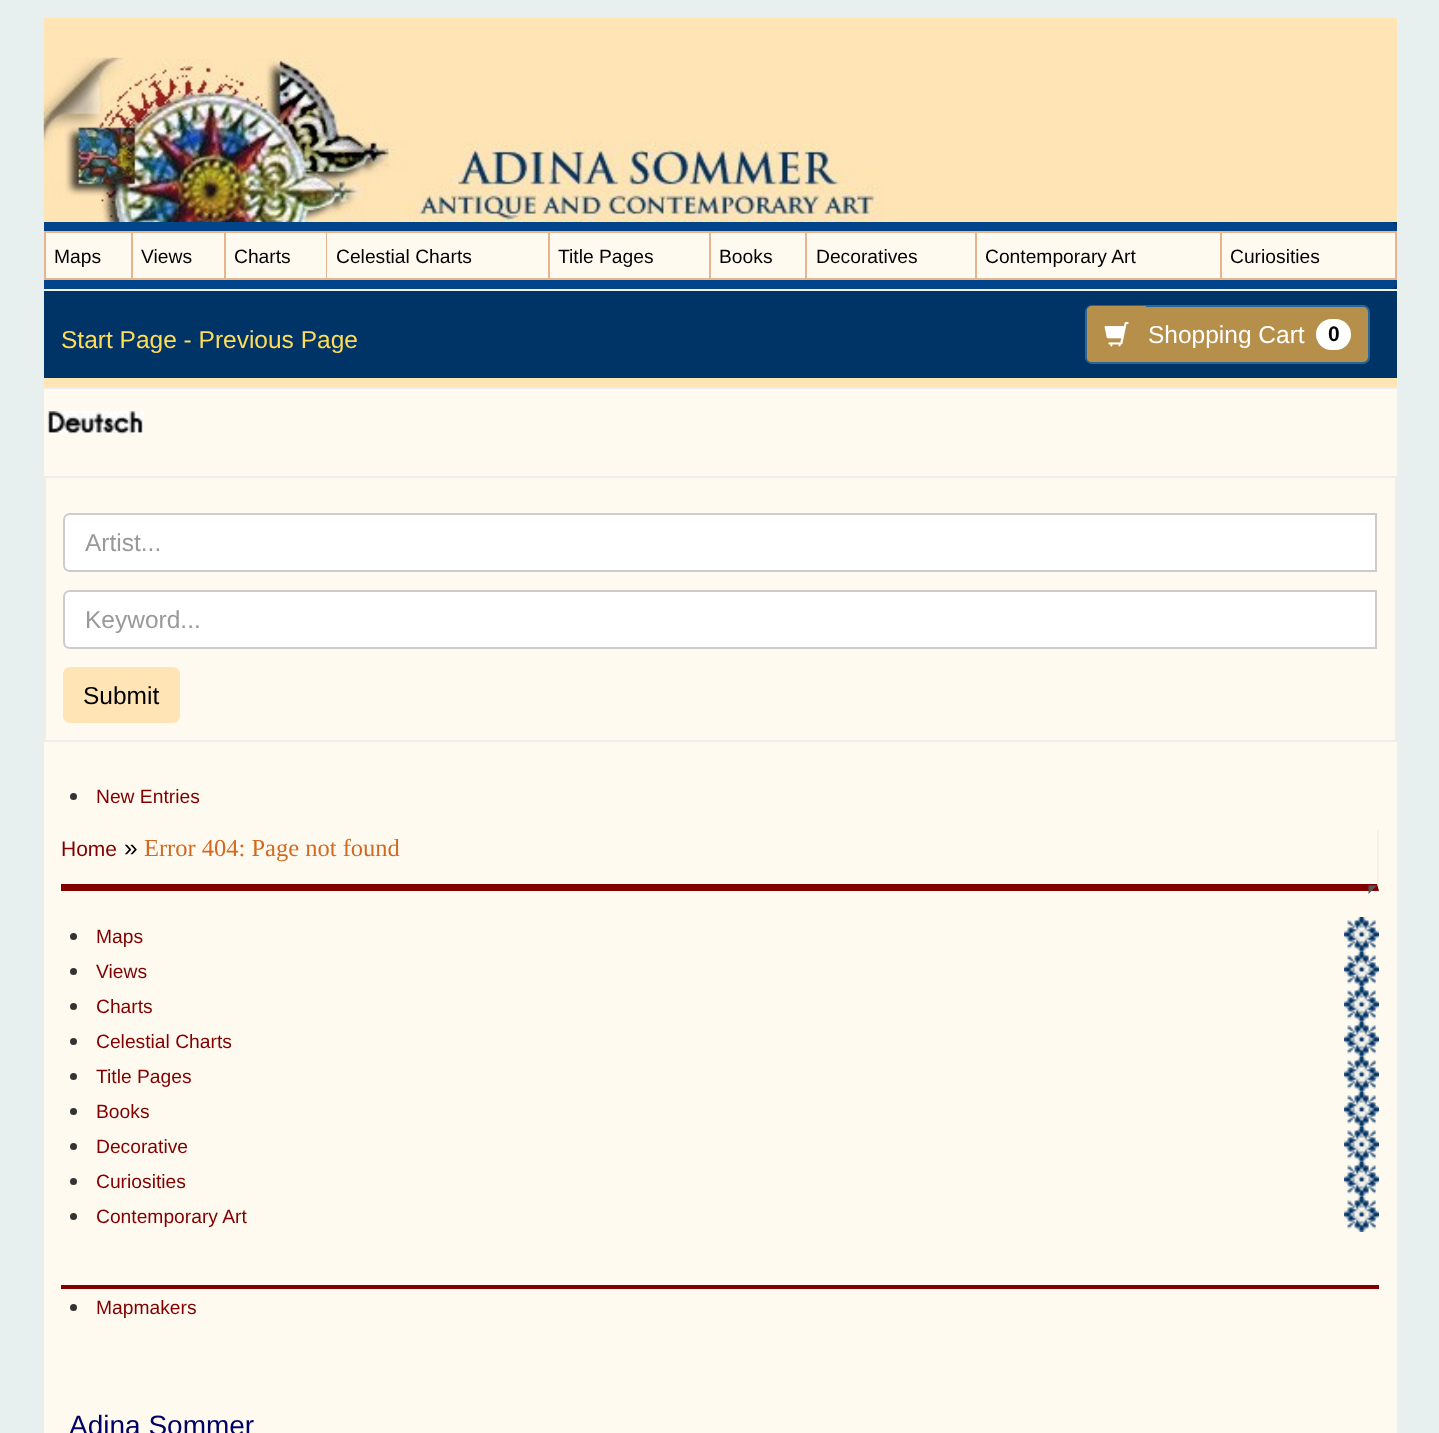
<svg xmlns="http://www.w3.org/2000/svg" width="1439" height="1433">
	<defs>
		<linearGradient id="g1" gradientUnits="userSpaceOnUse" x1="44" y1="256" x2="1397" y2="255"><stop offset="0" stop-color="#004489" /><stop offset="1" stop-color="#003366" /></linearGradient>
	</defs>
	<rect width="100%" height="100%" fill="#E7EFEF" />
	<rect x="44" y="18" width="1353" height="369" fill="#FFE4B5" />
	<image x="43" y="57" width="911" height="166" href="assets/img1.png" />
	<rect x="44" y="291" width="1353" height="87" fill="#003366" />
	<rect x="44" y="222" width="1353" height="67" fill="url(#g1)" />
	<rect x="44" y="289" width="1353" height="2" fill="#F7F2E8" />
	<rect x="44" y="222" width="1353" height="67" rx="7" fill="#004489" />
	<rect x="44" y="231" width="2" height="49" fill="#E8B48E" />
	<rect x="46" y="231" width="1351" height="2" fill="#E8B48E" />
	<rect x="131" y="231" width="2" height="49" fill="#E8B48E" />
	<rect x="46" y="278" width="87" height="2" fill="#E8B48E" />
	<rect x="46" y="233" width="85" height="45" fill="#FFFAF0" />
	<text x="54" y="263" font-family="Liberation Sans" font-size="19.25" fill="#000000">Maps</text>
	<rect x="224" y="231" width="2" height="49" fill="#E8B48E" />
	<rect x="133" y="278" width="93" height="2" fill="#E8B48E" />
	<rect x="133" y="233" width="91" height="45" fill="#FFFAF0" />
	<text x="141" y="263" font-family="Liberation Sans" font-size="19.25" fill="#000000">Views</text>
	<rect x="326" y="231" width="1" height="49" fill="#E8B48E" />
	<rect x="226" y="278" width="101" height="2" fill="#E8B48E" />
	<rect x="226" y="233" width="100" height="45" fill="#FFFAF0" />
	<text x="234" y="263" font-family="Liberation Sans" font-size="19.25" fill="#000000">Charts</text>
	<rect x="548" y="231" width="2" height="49" fill="#E8B48E" />
	<rect x="327" y="278" width="223" height="2" fill="#E8B48E" />
	<rect x="327" y="233" width="221" height="45" fill="#FFFAF0" />
	<text x="336" y="263" font-family="Liberation Sans" font-size="19.25" fill="#000000">Celestial Charts</text>
	<rect x="709" y="231" width="2" height="49" fill="#E8B48E" />
	<rect x="550" y="278" width="161" height="2" fill="#E8B48E" />
	<rect x="550" y="233" width="159" height="45" fill="#FFFAF0" />
	<text x="558" y="263" font-family="Liberation Sans" font-size="19.25" fill="#000000">Title Pages</text>
	<rect x="805" y="231" width="2" height="49" fill="#E8B48E" />
	<rect x="711" y="278" width="96" height="2" fill="#E8B48E" />
	<rect x="711" y="233" width="94" height="45" fill="#FFFAF0" />
	<text x="719" y="263" font-family="Liberation Sans" font-size="19.25" fill="#000000">Books</text>
	<rect x="975" y="231" width="2" height="49" fill="#E8B48E" />
	<rect x="807" y="278" width="170" height="2" fill="#E8B48E" />
	<rect x="807" y="233" width="168" height="45" fill="#FFFAF0" />
	<text x="816" y="263" font-family="Liberation Sans" font-size="19.25" fill="#000000">Decoratives</text>
	<rect x="1220" y="231" width="2" height="49" fill="#E8B48E" />
	<rect x="977" y="278" width="245" height="2" fill="#E8B48E" />
	<rect x="977" y="233" width="243" height="45" fill="#FFFAF0" />
	<text x="985" y="263" font-family="Liberation Sans" font-size="19.25" fill="#000000">Contemporary Art</text>
	<rect x="1395" y="231" width="2" height="49" fill="#E8B48E" />
	<rect x="1222" y="278" width="175" height="2" fill="#E8B48E" />
	<rect x="1222" y="233" width="173" height="45" fill="#FFFAF0" />
	<text x="1230" y="263" font-family="Liberation Sans" font-size="19.25" fill="#000000">Curiosities</text>
	<text x="61" y="348" font-family="Liberation Sans" font-size="24.5" fill="#FFDD59">Start Page - Previous Page</text>
	<rect x="1086" y="306" width="283" height="57" rx="6" fill="#B68F4A" stroke="#2B669A" stroke-width="2" />
	<path d="M1092 306H1146V362H1092C1089 362 1087 360 1087 357V311C1087 308 1089 306 1092 306Z" fill="#B68F4A" />
	<image x="1104" y="322" width="25" height="25" href="assets/img2.png" />
	<text x="1148" y="343" font-family="Liberation Sans" font-size="24.5" fill="#FFFFFF">Shopping Cart</text>
	<rect x="1316" y="319" width="35" height="31" rx="15.5" fill="#FFFFFF" />
	<text x="1328" y="341" font-family="Liberation Sans" font-size="21" font-weight="700" fill="#000000">0</text>
	<rect x="44" y="389" width="1353" height="1044" fill="#FFFAF0" />
	<image x="47" y="411" width="97" height="23" href="assets/img3.png" />
	<rect x="45" y="477" width="1351" height="264" fill="none" stroke="#EEEEEE" stroke-width="2" />
	<path d="M70 514H1376V571H70C66.5 571 64 568.5 64 565V520C64 516.5 66.5 514 70 514Z" fill="#FFFFFF" stroke="#CCCCCC" stroke-width="2" />
	<text x="85" y="551" font-family="Liberation Sans" font-size="24.5" fill="#999999">Artist...</text>
	<path d="M70 591H1376V648H70C66.5 648 64 645.5 64 642V597C64 593.5 66.5 591 70 591Z" fill="#FFFFFF" stroke="#CCCCCC" stroke-width="2" />
	<text x="85" y="628" font-family="Liberation Sans" font-size="24.5" fill="#999999">Keyword...</text>
	<rect x="63" y="667" width="117" height="56" rx="7" fill="#FFE4B5" />
	<text x="83" y="704" font-family="Liberation Sans" font-size="24.5" fill="#000000">Submit</text>
	<circle cx="73.5" cy="796.5" r="3.5" fill="#333333" />
	<text x="96" y="803" font-family="Liberation Sans" font-size="19.25" fill="#800000">New Entries</text>
	<path d="M1379 830V891L1377 884V830Z" fill="#F7F2E8" />
	<path d="M1379 891H61V884H1377Z" fill="#800000" />
	<text x="61" y="856" font-family="Liberation Sans" font-size="21" fill="#800000">Home</text>
	<text x="124" y="856" font-family="Liberation Sans" font-size="24.5" fill="#000000">»</text>
	<text x="144" y="856" font-family="Liberation Serif" font-size="24.5" fill="#D2691E">Error 404: Page not found</text>
	<path d="M1368.5 885.5H1377L1368.5 894Z" fill="#555555" />
	<rect x="61" y="1285" width="1318" height="4" fill="#800000" />
	<image x="1344" y="917" width="35" height="35" href="assets/img4.png" />
	<circle cx="73.5" cy="936.5" r="3.5" fill="#333333" />
	<text x="96" y="943" font-family="Liberation Sans" font-size="19.25" fill="#800000">Maps</text>
	<image x="1344" y="952" width="35" height="35" href="assets/img4.png" />
	<circle cx="73.5" cy="971.5" r="3.5" fill="#333333" />
	<text x="96" y="978" font-family="Liberation Sans" font-size="19.25" fill="#800000">Views</text>
	<image x="1344" y="987" width="35" height="35" href="assets/img4.png" />
	<circle cx="73.5" cy="1006.5" r="3.5" fill="#333333" />
	<text x="96" y="1013" font-family="Liberation Sans" font-size="19.25" fill="#800000">Charts</text>
	<image x="1344" y="1022" width="35" height="35" href="assets/img4.png" />
	<circle cx="73.5" cy="1041.5" r="3.5" fill="#333333" />
	<text x="96" y="1048" font-family="Liberation Sans" font-size="19.25" fill="#800000">Celestial Charts</text>
	<image x="1344" y="1057" width="35" height="35" href="assets/img4.png" />
	<circle cx="73.5" cy="1076.5" r="3.5" fill="#333333" />
	<text x="96" y="1083" font-family="Liberation Sans" font-size="19.25" fill="#800000">Title Pages</text>
	<image x="1344" y="1092" width="35" height="35" href="assets/img4.png" />
	<circle cx="73.5" cy="1111.5" r="3.5" fill="#333333" />
	<text x="96" y="1118" font-family="Liberation Sans" font-size="19.25" fill="#800000">Books</text>
	<image x="1344" y="1127" width="35" height="35" href="assets/img4.png" />
	<circle cx="73.5" cy="1146.5" r="3.5" fill="#333333" />
	<text x="96" y="1153" font-family="Liberation Sans" font-size="19.25" fill="#800000">Decorative</text>
	<image x="1344" y="1162" width="35" height="35" href="assets/img4.png" />
	<circle cx="73.5" cy="1181.5" r="3.5" fill="#333333" />
	<text x="96" y="1188" font-family="Liberation Sans" font-size="19.25" fill="#800000">Curiosities</text>
	<image x="1344" y="1197" width="35" height="35" href="assets/img4.png" />
	<circle cx="73.5" cy="1216.5" r="3.5" fill="#333333" />
	<text x="96" y="1223" font-family="Liberation Sans" font-size="19.25" fill="#800000">Contemporary Art</text>
	<circle cx="73.5" cy="1307.5" r="3.5" fill="#333333" />
	<text x="96" y="1314" font-family="Liberation Sans" font-size="19.25" fill="#800000">Mapmakers</text>
	<text x="69" y="1435" font-family="Liberation Sans" font-size="28" fill="#000066">Adina Sommer</text>
</svg>
